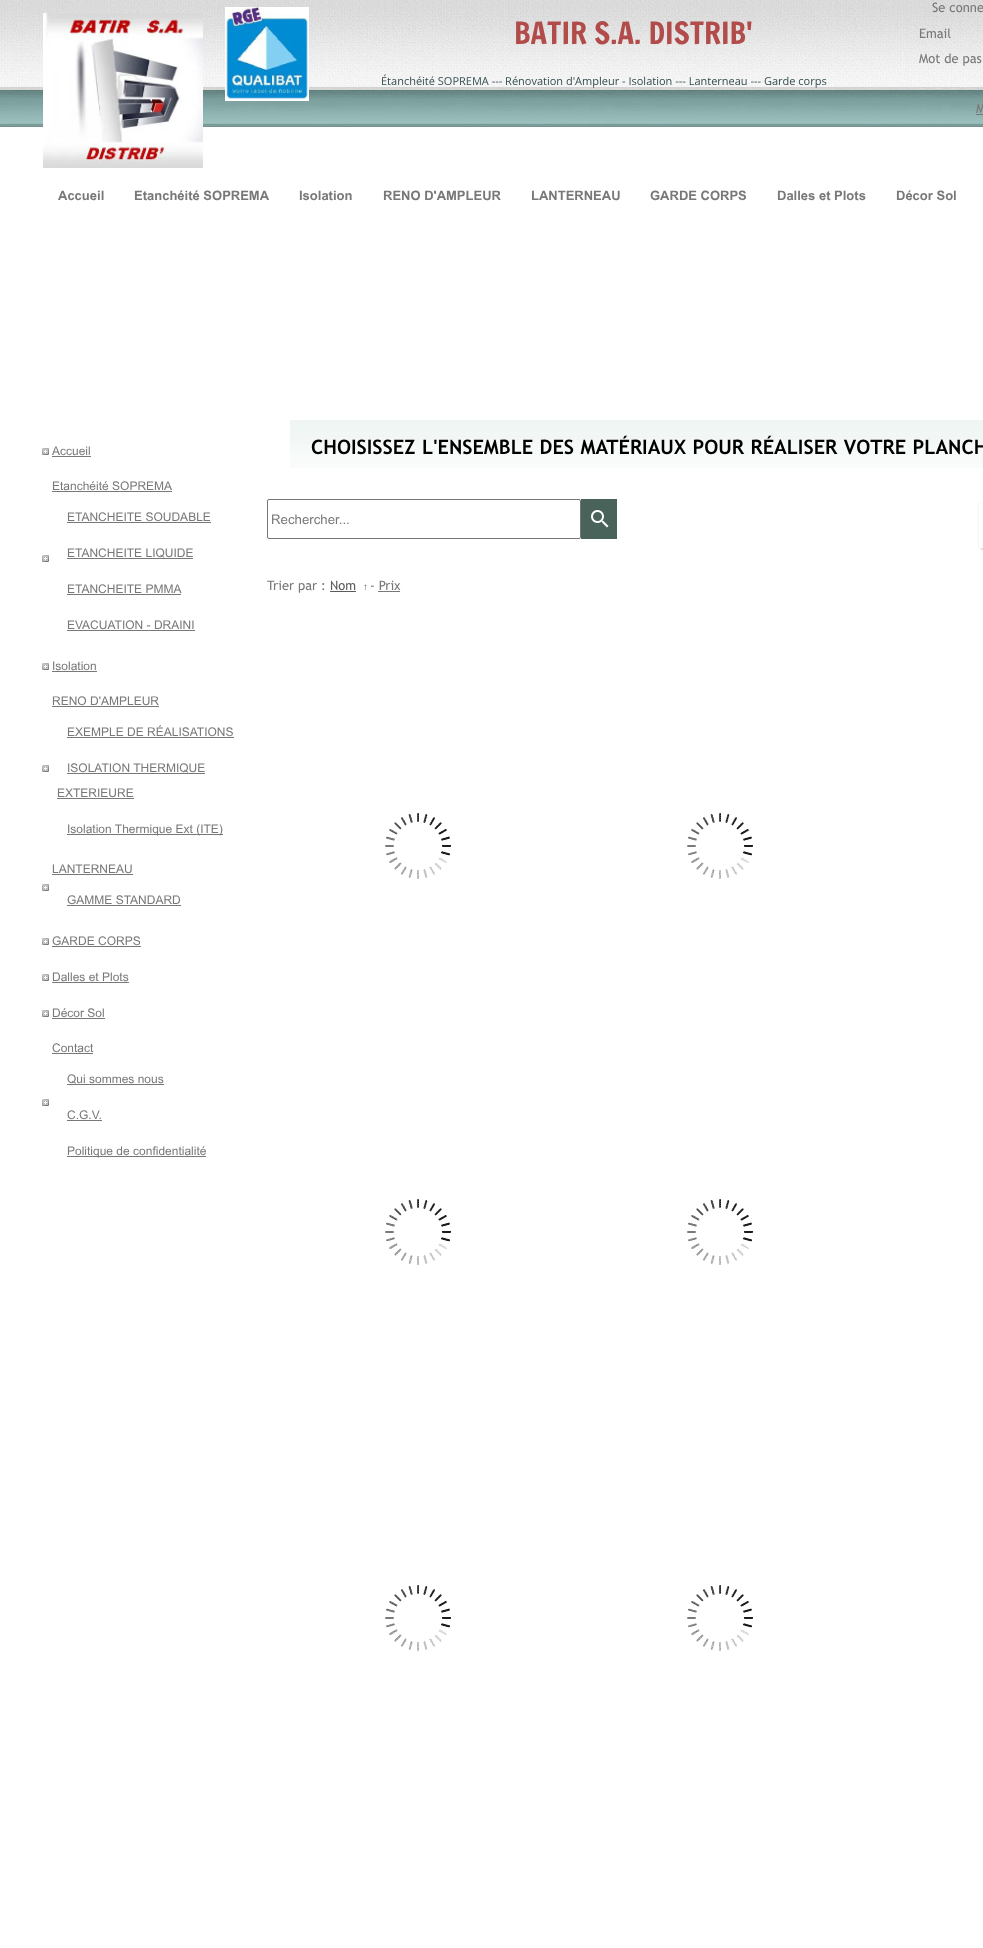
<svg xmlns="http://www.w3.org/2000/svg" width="983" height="1948">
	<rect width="100%" height="100%" fill="#FFFFFF" />
	<image x="0" y="0" width="983" height="127" href="assets/img1.png" />
	<image x="43" y="13" width="160" height="155" href="assets/img2.png" />
	<image x="225" y="7" width="84" height="94" href="assets/img3.png" />
	<text x="514" y="44" font-family="Francois One" font-size="30" fill="#B14C4A">BATIR S.A. DISTRIB'</text>
	<g font-family="Trebuchet MS" font-size="13" fill="#787878">
		<text x="932" y="12">Se conne</text>
		<text x="919" y="38">Email</text>
		<text x="919" y="63">Mot de pas</text>
		<text x="976" y="113">M</text>
	</g>
	<rect x="976" y="114" width="7" height="1" fill="#787878" />
	<text x="381" y="85" font-family="Open Sans" font-size="11" fill="#344D4F">Étanchéité SOPREMA --- Rénovation d'Ampleur - Isolation --- Lanterneau --- Garde corps</text>
	<g font-family="Arial" font-size="13" font-weight="700" fill="#787878">
		<text x="58" y="200">Accueil</text>
		<text x="134" y="200">Etanchéité SOPREMA</text>
		<text x="299" y="200">Isolation</text>
		<text x="383" y="200">RENO D'AMPLEUR</text>
		<text x="531" y="200">LANTERNEAU</text>
		<text x="650" y="200">GARDE CORPS</text>
		<text x="777" y="200">Dalles et Plots</text>
		<text x="896" y="200">Décor Sol</text>
	</g>
	<image x="42" y="448" width="7" height="7" href="assets/img4.png" />
	<text x="52" y="455" font-family="Arial" font-size="12" fill="#787878">Accueil</text>
	<rect x="52" y="456" width="39" height="1" fill="#787878" />
	<image x="42" y="555" width="7" height="7" href="assets/img4.png" />
	<text x="52" y="490" font-family="Arial" font-size="12" fill="#787878">Etanchéité SOPREMA</text>
	<rect x="52" y="491" width="120" height="1" fill="#787878" />
	<text x="67" y="521" font-family="Arial" font-size="12" fill="#787878">ETANCHEITE SOUDABLE</text>
	<rect x="67" y="522" width="144" height="1" fill="#787878" />
	<text x="67" y="557" font-family="Arial" font-size="12" fill="#787878">ETANCHEITE LIQUIDE</text>
	<rect x="67" y="558" width="126" height="1" fill="#787878" />
	<text x="67" y="593" font-family="Arial" font-size="12" fill="#787878">ETANCHEITE PMMA</text>
	<rect x="67" y="594" width="114" height="1" fill="#787878" />
	<text x="67" y="629" font-family="Arial" font-size="12" fill="#787878">EVACUATION - DRAINI</text>
	<rect x="67" y="630" width="128" height="1" fill="#787878" />
	<image x="42" y="663" width="7" height="7" href="assets/img4.png" />
	<text x="52" y="670" font-family="Arial" font-size="12" fill="#787878">Isolation</text>
	<rect x="52" y="671" width="45" height="1" fill="#787878" />
	<image x="42" y="765" width="7" height="7" href="assets/img4.png" />
	<text x="52" y="705" font-family="Arial" font-size="12" fill="#787878">RENO D'AMPLEUR</text>
	<rect x="52" y="706" width="107" height="1" fill="#787878" />
	<text x="67" y="736" font-family="Arial" font-size="12" fill="#787878">EXEMPLE DE RÉALISATIONS</text>
	<rect x="67" y="737" width="167" height="1" fill="#787878" />
	<text x="67" y="772" font-family="Arial" font-size="12" fill="#787878">ISOLATION THERMIQUE</text>
	<rect x="67" y="773" width="138" height="1" fill="#787878" />
	<text x="57" y="797" font-family="Arial" font-size="12" fill="#787878">EXTERIEURE</text>
	<rect x="57" y="798" width="77" height="1" fill="#787878" />
	<rect x="67" y="834" width="156" height="1" fill="#787878" />
	<text x="67" y="833" font-family="Arial" font-size="12" fill="#787878">Isolation Thermique Ext (ITE)</text>
	<image x="42" y="884" width="7" height="7" href="assets/img4.png" />
	<text x="52" y="873" font-family="Arial" font-size="12" fill="#787878">LANTERNEAU</text>
	<rect x="52" y="874" width="81" height="1" fill="#787878" />
	<text x="67" y="904" font-family="Arial" font-size="12" fill="#787878">GAMME STANDARD</text>
	<rect x="67" y="905" width="114" height="1" fill="#787878" />
	<image x="42" y="938" width="7" height="7" href="assets/img4.png" />
	<text x="52" y="945" font-family="Arial" font-size="12" fill="#787878">GARDE CORPS</text>
	<rect x="52" y="946" width="89" height="1" fill="#787878" />
	<image x="42" y="974" width="7" height="7" href="assets/img4.png" />
	<text x="52" y="981" font-family="Arial" font-size="12" fill="#787878">Dalles et Plots</text>
	<rect x="52" y="982" width="77" height="1" fill="#787878" />
	<image x="42" y="1010" width="7" height="7" href="assets/img4.png" />
	<text x="52" y="1017" font-family="Arial" font-size="12" fill="#787878">Décor Sol</text>
	<rect x="52" y="1018" width="53" height="1" fill="#787878" />
	<image x="42" y="1099" width="7" height="7" href="assets/img4.png" />
	<text x="52" y="1052" font-family="Arial" font-size="12" fill="#787878">Contact</text>
	<rect x="52" y="1053" width="41" height="1" fill="#787878" />
	<text x="67" y="1083" font-family="Arial" font-size="12" fill="#787878">Qui sommes nous</text>
	<rect x="67" y="1084" width="97" height="1" fill="#787878" />
	<text x="67" y="1119" font-family="Arial" font-size="12" fill="#787878">C.G.V.</text>
	<rect x="67" y="1120" width="35" height="1" fill="#787878" />
	<rect x="67" y="1156" width="139" height="1" fill="#787878" />
	<text x="67" y="1155" font-family="Arial" font-size="12" fill="#787878">Politique de confidentialité</text>
	<image x="290" y="420" width="693" height="48" href="assets/img5.png" />
	<text x="311" y="454" word-spacing="0.5" font-family="Trebuchet MS" font-size="20" font-weight="700" fill="#000000">CHOISISSEZ L'ENSEMBLE DES MATÉRIAUX POUR RÉALISER VOTRE PLANCH</text>
	<rect x="267.5" y="499.5" width="313" height="39" rx="1.5" fill="none" stroke="#767676" />
	<text x="271" y="524" font-family="Arial" font-size="13.25" fill="#787878">Rechercher...</text>
	<rect x="581" y="499" width="36" height="40" fill="#49635A" />
	<image x="591" y="510" width="18" height="18" href="assets/img6.png" />
	<rect x="981" y="505" width="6" height="45" rx="1" fill="#000000" fill-opacity="0.15" filter="blur(1px)" />
	<rect x="979" y="503" width="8" height="45" rx="1" fill="#000000" fill-opacity="0.1" filter="blur(1px)" />
	<rect x="979" y="503" width="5" height="45" rx="1" fill="#FFFFFF" />
	<text x="267" y="590" font-family="Trebuchet MS" font-size="13" fill="#787878">Trier par :</text>
	<text x="330" y="590" font-family="Trebuchet MS" font-size="13" fill="#5C5C5C">Nom</text>
	<rect x="330" y="591" width="26" height="1" fill="#5C5C5C" />
	<text x="363" y="590" font-family="Liberation Serif" font-size="10" fill="#5C5C5C">↑</text>
	<text x="370" y="590" font-family="Trebuchet MS" font-size="13" fill="#787878">- Prix</text>
	<rect x="378" y="591" width="22" height="1" fill="#787878" />
	<image x="385" y="813" width="66" height="66" href="assets/img7.png" />
	<image x="687" y="813" width="66" height="66" href="assets/img7.png" />
	<image x="385" y="1199" width="66" height="66" href="assets/img7.png" />
	<image x="687" y="1199" width="66" height="66" href="assets/img7.png" />
	<image x="385" y="1585" width="66" height="66" href="assets/img7.png" />
	<image x="687" y="1585" width="66" height="66" href="assets/img7.png" />
</svg>
